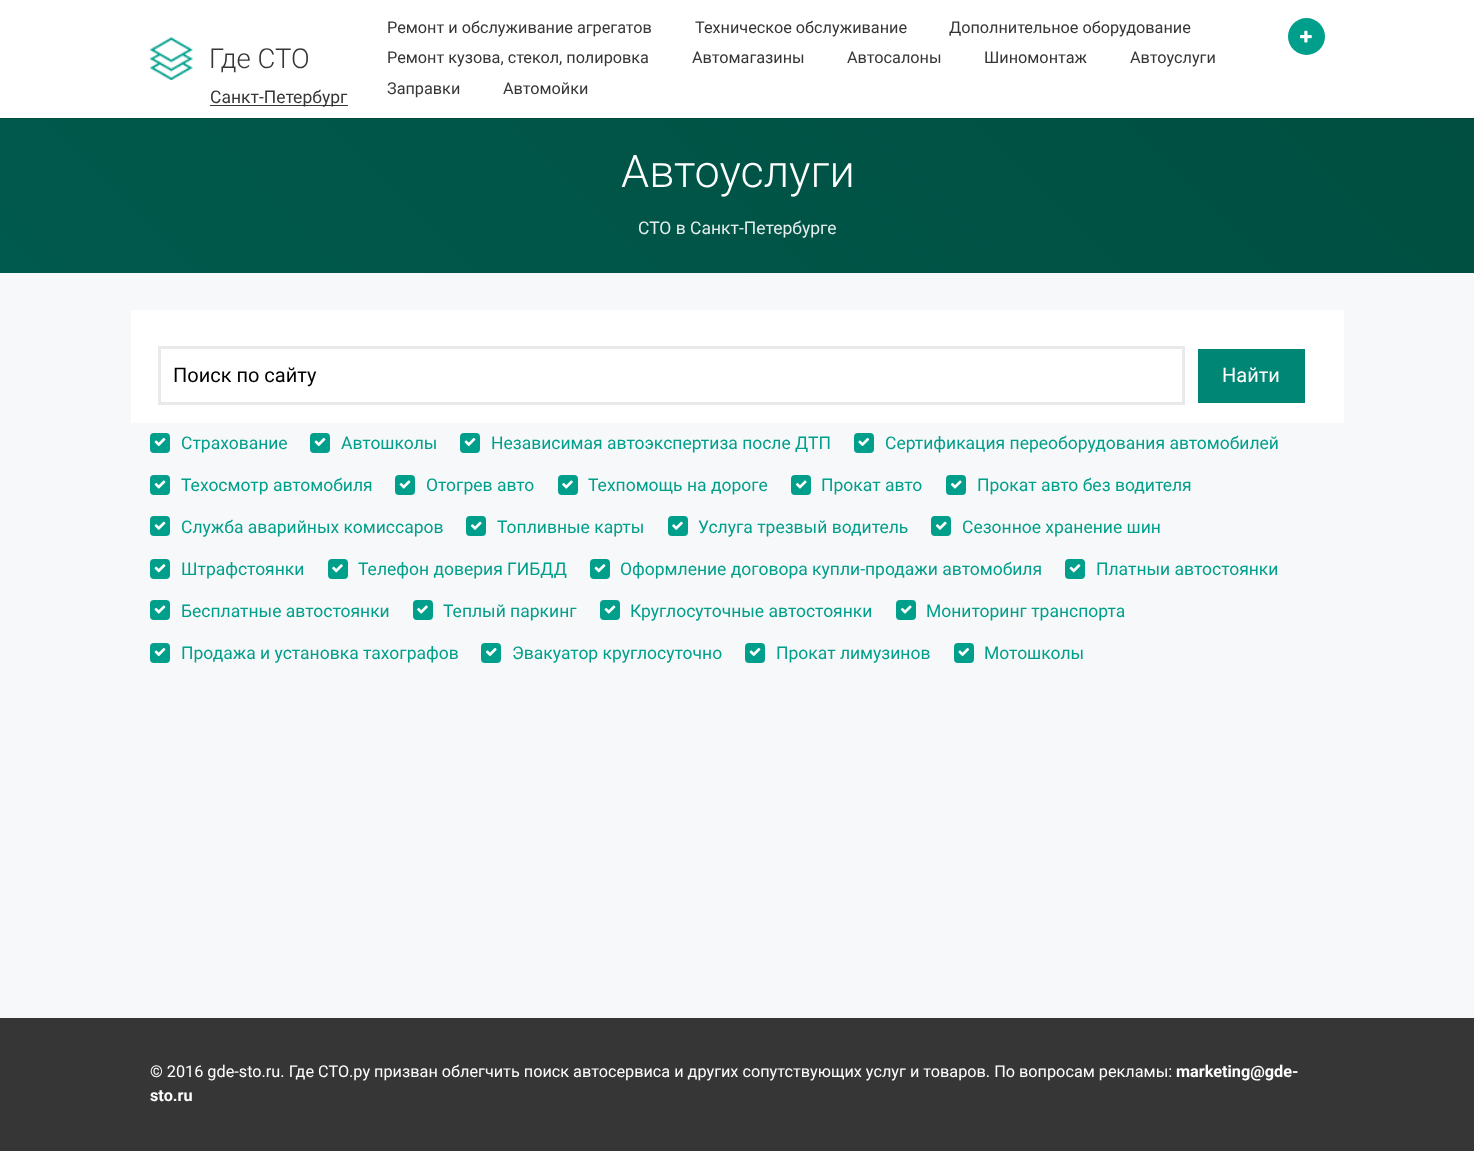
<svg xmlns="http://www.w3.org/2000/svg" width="1474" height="1151">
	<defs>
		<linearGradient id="g1" gradientUnits="userSpaceOnUse" x1="-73" y1="1006" x2="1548" y2="-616"><stop offset="0" stop-color="#005F53" /><stop offset="1" stop-color="#004A3B" /></linearGradient>
	</defs>
	<rect width="100%" height="100%" fill="#F7F8F9" />
	<rect x="0" y="118" width="1474" height="155" fill="url(#g1)" />
	<rect x="0" y="1" width="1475" height="118" fill="#000000" fill-opacity="0.1" filter="blur(0.5px)" />
	<rect x="0" y="0" width="1474" height="118" fill="#FFFFFF" />
	<image x="150" y="37" width="43" height="43" href="assets/img1.png" />
	<text x="209" y="68" font-family="Roboto" font-size="27.5" font-weight="300" fill="#363636">Где СТО</text>
	<rect x="210" y="105" width="138" height="1" fill="#363636" />
	<text x="210" y="103" font-family="Roboto" font-size="17.5" fill="#363636">Санкт-Петербург</text>
	<g font-family="Roboto" font-size="16.25" fill="#363636">
		<text x="387" y="33">Ремонт и обслуживание агрегатов</text>
		<text x="695" y="33">Техническое обслуживание</text>
		<text x="949" y="33">Дополнительное оборудование</text>
		<text x="387" y="63">Ремонт кузова, стекол, полировка</text>
		<text x="692" y="63">Автомагазины</text>
		<text x="847" y="63">Автосалоны</text>
		<text x="984" y="63">Шиномонтаж</text>
		<text x="1130" y="63">Автоуслуги</text>
		<text x="387" y="94">Заправки</text>
		<text x="503" y="94">Автомойки</text>
	</g>
	<circle cx="1306.5" cy="36.5" r="18.5" fill="#009F8B" />
	<image x="1300" y="30" width="12" height="13" href="assets/img2.png" />
	<text x="621" y="187" font-family="Roboto" font-size="45" font-weight="300" fill="#FFFFFF">Автоуслуги</text>
	<text x="638" y="234" font-family="Roboto" font-size="17.5" fill="#E6EEED">СТО в Санкт-Петербурге</text>
	<rect x="131" y="310" width="1213" height="113" fill="#FFFFFF" />
	<rect x="159.5" y="347.5" width="1024" height="56" fill="none" stroke="#E9E9E9" stroke-width="3" />
	<text x="173" y="382" font-family="Roboto" font-size="20" fill="#000000">Поиск по сайту</text>
	<rect x="1198" y="349" width="107" height="54" fill="#008675" />
	<text x="1222" y="382" font-family="Roboto" font-size="20" fill="#FFFFFF">Найти</text>
	<rect x="151.5" y="434.5" width="17" height="17" rx="2.5" fill="#009F8B" stroke="#009F8B" stroke-width="3" />
	<image x="154" y="437" width="12" height="10" href="assets/img3.png" />
	<text x="181" y="449" font-family="Roboto" font-size="17.5" fill="#009F8B">Страхование</text>
	<rect x="311.5" y="434.5" width="17" height="17" rx="2.5" fill="#009F8B" stroke="#009F8B" stroke-width="3" />
	<image x="314" y="437" width="12" height="10" href="assets/img3.png" />
	<text x="341" y="449" font-family="Roboto" font-size="17.5" fill="#009F8B">Автошколы</text>
	<rect x="461.5" y="434.5" width="17" height="17" rx="2.5" fill="#009F8B" stroke="#009F8B" stroke-width="3" />
	<image x="464" y="437" width="12" height="10" href="assets/img3.png" />
	<text x="491" y="449" font-family="Roboto" font-size="17.5" fill="#009F8B">Независимая автоэкспертиза после ДТП</text>
	<rect x="855.5" y="434.5" width="17" height="17" rx="2.5" fill="#009F8B" stroke="#009F8B" stroke-width="3" />
	<image x="858" y="437" width="12" height="10" href="assets/img4.png" />
	<text x="885" y="449" font-family="Roboto" font-size="17.5" fill="#009F8B">Сертификация переоборудования автомобилей</text>
	<rect x="151.5" y="476.5" width="17" height="17" rx="2.5" fill="#009F8B" stroke="#009F8B" stroke-width="3" />
	<image x="154" y="480" width="12" height="9" href="assets/img5.png" />
	<text x="181" y="491" font-family="Roboto" font-size="17.5" fill="#009F8B">Техосмотр автомобиля</text>
	<rect x="396.5" y="476.5" width="17" height="17" rx="2.5" fill="#009F8B" stroke="#009F8B" stroke-width="3" />
	<image x="399" y="480" width="12" height="9" href="assets/img5.png" />
	<text x="426" y="491" font-family="Roboto" font-size="17.5" fill="#009F8B">Отогрев авто</text>
	<rect x="559.5" y="476.5" width="17" height="17" rx="2.5" fill="#009F8B" stroke="#009F8B" stroke-width="3" />
	<image x="562" y="480" width="11" height="9" href="assets/img6.png" />
	<text x="588" y="491" font-family="Roboto" font-size="17.5" fill="#009F8B">Техпомощь на дороге</text>
	<rect x="792.5" y="476.5" width="17" height="17" rx="2.5" fill="#009F8B" stroke="#009F8B" stroke-width="3" />
	<image x="795" y="480" width="12" height="9" href="assets/img7.png" />
	<text x="821" y="491" font-family="Roboto" font-size="17.5" fill="#009F8B">Прокат авто</text>
	<rect x="947.5" y="476.5" width="17" height="17" rx="2.5" fill="#009F8B" stroke="#009F8B" stroke-width="3" />
	<image x="950" y="480" width="12" height="9" href="assets/img7.png" />
	<text x="977" y="491" font-family="Roboto" font-size="17.5" fill="#009F8B">Прокат авто без водителя</text>
	<rect x="151.5" y="517.5" width="17" height="17" rx="2.5" fill="#009F8B" stroke="#009F8B" stroke-width="3" />
	<image x="154" y="521" width="12" height="9" href="assets/img8.png" />
	<text x="181" y="533" font-family="Roboto" font-size="17.5" fill="#009F8B">Служба аварийных комиссаров</text>
	<rect x="467.5" y="517.5" width="17" height="17" rx="2.5" fill="#009F8B" stroke="#009F8B" stroke-width="3" />
	<image x="470" y="521" width="12" height="9" href="assets/img9.png" />
	<text x="497" y="533" font-family="Roboto" font-size="17.5" fill="#009F8B">Топливные карты</text>
	<rect x="669.5" y="517.5" width="17" height="17" rx="2.5" fill="#009F8B" stroke="#009F8B" stroke-width="3" />
	<image x="672" y="521" width="11" height="9" href="assets/img10.png" />
	<text x="698" y="533" font-family="Roboto" font-size="17.5" fill="#009F8B">Услуга трезвый водитель</text>
	<rect x="932.5" y="517.5" width="17" height="17" rx="2.5" fill="#009F8B" stroke="#009F8B" stroke-width="3" />
	<image x="935" y="521" width="12" height="9" href="assets/img9.png" />
	<text x="962" y="533" font-family="Roboto" font-size="17.5" fill="#009F8B">Сезонное хранение шин</text>
	<rect x="151.5" y="560.5" width="17" height="17" rx="2.5" fill="#009F8B" stroke="#009F8B" stroke-width="3" />
	<image x="154" y="564" width="12" height="9" href="assets/img11.png" />
	<text x="181" y="575" font-family="Roboto" font-size="17.5" fill="#009F8B">Штрафстоянки</text>
	<rect x="329.5" y="560.5" width="17" height="17" rx="2.5" fill="#009F8B" stroke="#009F8B" stroke-width="3" />
	<image x="332" y="564" width="11" height="9" href="assets/img12.png" />
	<text x="358" y="575" font-family="Roboto" font-size="17.5" fill="#009F8B">Телефон доверия ГИБДД</text>
	<rect x="591.5" y="560.5" width="17" height="17" rx="2.5" fill="#009F8B" stroke="#009F8B" stroke-width="3" />
	<image x="594" y="564" width="12" height="9" href="assets/img11.png" />
	<text x="620" y="575" font-family="Roboto" font-size="17.5" fill="#009F8B">Оформление договора купли-продажи автомобиля</text>
	<rect x="1066.5" y="560.5" width="17" height="17" rx="2.5" fill="#009F8B" stroke="#009F8B" stroke-width="3" />
	<image x="1069" y="564" width="12" height="9" href="assets/img11.png" />
	<text x="1096" y="575" font-family="Roboto" font-size="17.5" fill="#009F8B">Платныи автостоянки</text>
	<rect x="151.5" y="601.5" width="17" height="17" rx="2.5" fill="#009F8B" stroke="#009F8B" stroke-width="3" />
	<image x="154" y="605" width="12" height="9" href="assets/img5.png" />
	<text x="181" y="617" font-family="Roboto" font-size="17.5" fill="#009F8B">Бесплатные автостоянки</text>
	<rect x="414.5" y="601.5" width="17" height="17" rx="2.5" fill="#009F8B" stroke="#009F8B" stroke-width="3" />
	<image x="417" y="605" width="11" height="9" href="assets/img6.png" />
	<text x="443" y="617" font-family="Roboto" font-size="17.5" fill="#009F8B">Теплый паркинг</text>
	<rect x="601.5" y="601.5" width="17" height="17" rx="2.5" fill="#009F8B" stroke="#009F8B" stroke-width="3" />
	<image x="604" y="605" width="12" height="9" href="assets/img5.png" />
	<text x="630" y="617" font-family="Roboto" font-size="17.5" fill="#009F8B">Круглосуточные автостоянки</text>
	<rect x="897.5" y="601.5" width="17" height="17" rx="2.5" fill="#009F8B" stroke="#009F8B" stroke-width="3" />
	<image x="900" y="605" width="12" height="9" href="assets/img7.png" />
	<text x="926" y="617" font-family="Roboto" font-size="17.5" fill="#009F8B">Мониторинг транспорта</text>
	<rect x="151.5" y="644.5" width="17" height="17" rx="2.5" fill="#009F8B" stroke="#009F8B" stroke-width="3" />
	<image x="154" y="647" width="12" height="10" href="assets/img3.png" />
	<text x="181" y="659" font-family="Roboto" font-size="17.5" fill="#009F8B">Продажа и установка тахографов</text>
	<rect x="482.5" y="644.5" width="17" height="17" rx="2.5" fill="#009F8B" stroke="#009F8B" stroke-width="3" />
	<image x="485" y="647" width="12" height="10" href="assets/img13.png" />
	<text x="512" y="659" font-family="Roboto" font-size="17.5" fill="#009F8B">Эвакуатор круглосуточно</text>
	<rect x="746.5" y="644.5" width="17" height="17" rx="2.5" fill="#009F8B" stroke="#009F8B" stroke-width="3" />
	<image x="749" y="647" width="12" height="10" href="assets/img3.png" />
	<text x="776" y="659" font-family="Roboto" font-size="17.5" fill="#009F8B">Прокат лимузинов</text>
	<rect x="955.5" y="644.5" width="17" height="17" rx="2.5" fill="#009F8B" stroke="#009F8B" stroke-width="3" />
	<image x="958" y="647" width="12" height="10" href="assets/img4.png" />
	<text x="984" y="659" font-family="Roboto" font-size="17.5" fill="#009F8B">Мотошколы</text>
	<rect x="0" y="1018" width="1474" height="133" fill="#363636" />
	<text x="150" y="1077" font-family="Roboto" font-size="16.25" fill="#FFFFFF">© 2016 gde-sto.ru. Где СТО.ру призван облегчить поиск автосервиса и других сопутствующих услуг и товаров. По вопросам рекламы:</text>
	<g font-family="Roboto" font-size="16.25" font-weight="700" fill="#FFFFFF">
		<text x="1176" y="1077">marketing@gde-</text>
		<text x="150" y="1101">sto.ru</text>
	</g>
</svg>
